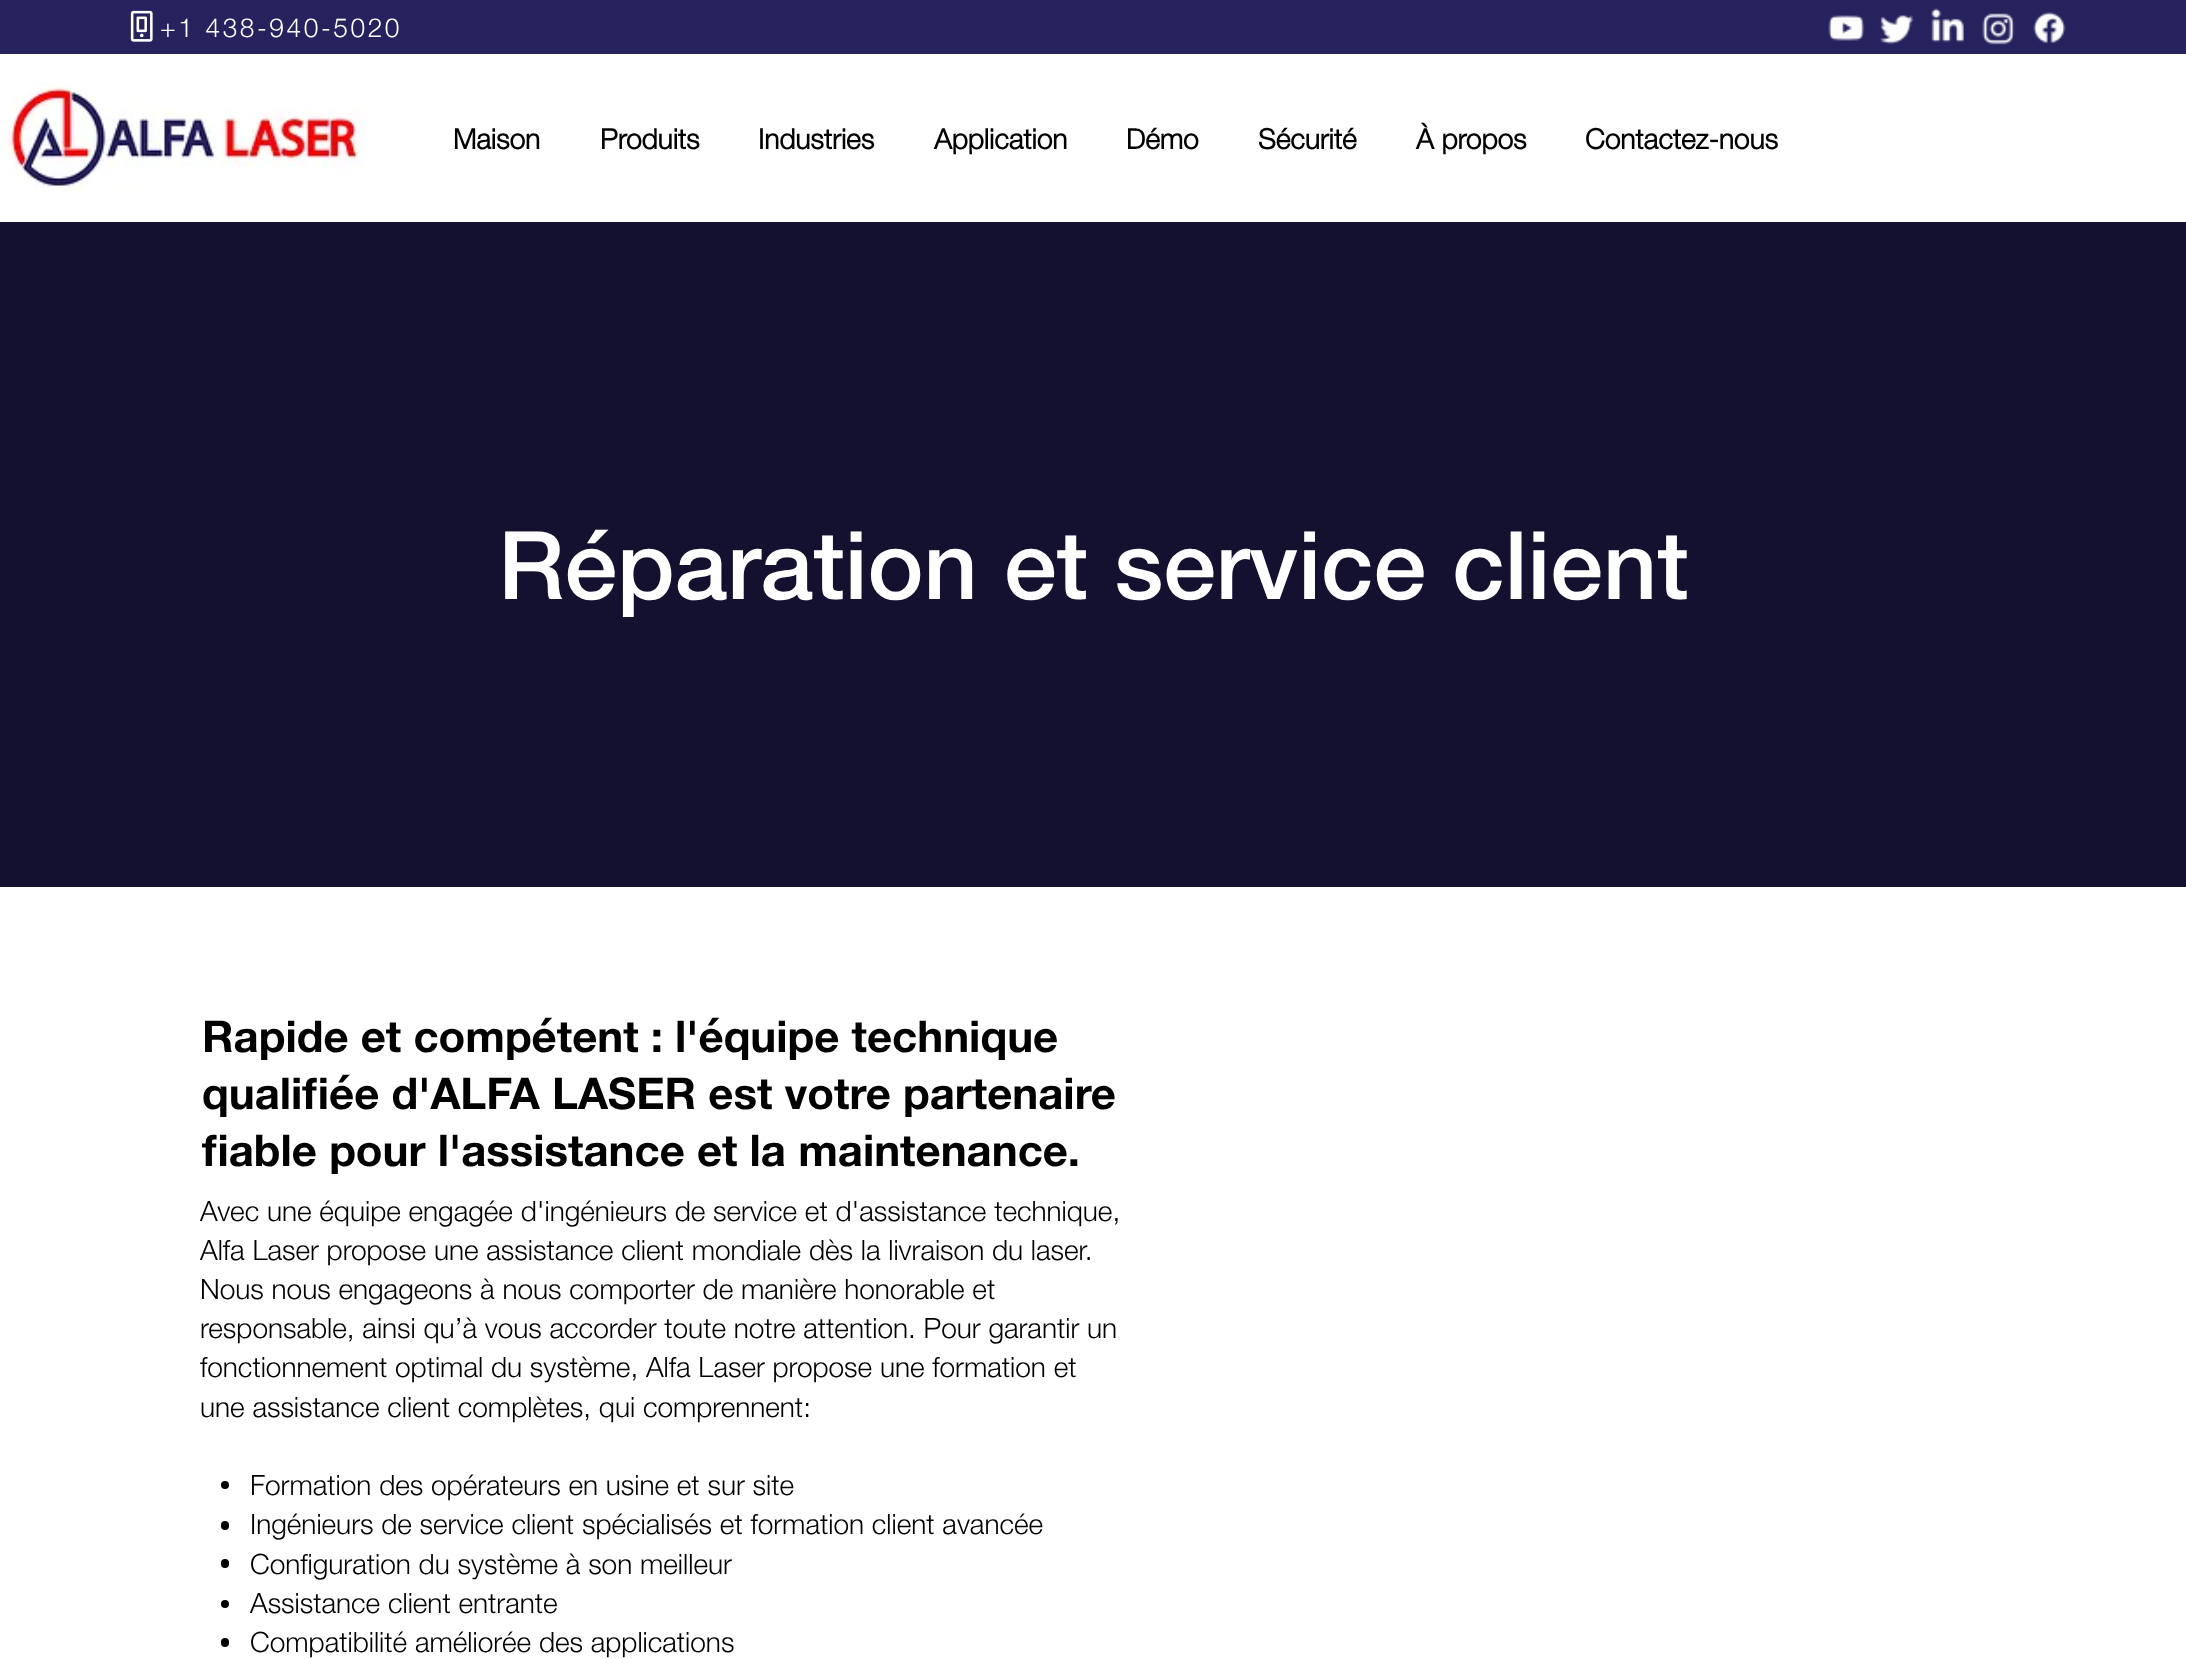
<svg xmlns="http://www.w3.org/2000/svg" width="2186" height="1659">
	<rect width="100%" height="100%" fill="#FFFFFF" />
	<rect x="0" y="0" width="2186" height="54" fill="#26225D" />
	<image x="130" y="10" width="23" height="32" href="assets/img1.png" />
	<text x="160" y="37" font-family="Helvetica Neue" font-size="26.25" font-weight="300" letter-spacing="2.6" fill="#FFFFFF">+1 438-940-5020</text>
	<image x="1828" y="15" width="37" height="26" href="assets/img2.png" />
	<image x="1879" y="15" width="35" height="30" href="assets/img3.png" />
	<image x="1931" y="8" width="33" height="35" href="assets/img4.png" />
	<image x="1982" y="13" width="33" height="32" href="assets/img5.png" />
	<image x="2033" y="12" width="33" height="32" href="assets/img6.png" />
	<image x="0" y="83" width="365" height="109" href="assets/img7.png" />
	<g font-family="Helvetica Neue" font-size="28" font-weight="700" fill="#000000">
		<text x="453" y="149">Maison</text>
		<text x="600" y="149">Produits</text>
		<text x="758" y="149">Industries</text>
		<text x="934" y="149">Application</text>
		<text x="1126" y="149">Démo</text>
		<text x="1258" y="149">Sécurité</text>
		<text x="1416" y="149">À propos</text>
		<text x="1585" y="149">Contactez-nous</text>
	</g>
	<rect x="0" y="222" width="2186" height="665" fill="#13112F" />
	<text x="498" y="599" font-family="Helvetica Neue" font-size="94.5" font-weight="500" fill="#FFFFFF">Réparation et service client</text>
	<g font-family="'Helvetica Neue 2'" font-size="43.75" font-weight="700" fill="#000000">
		<text x="202" y="1052">Rapide et compétent : l'équipe technique</text>
		<text x="202" y="1109">qualifiée d'ALFA LASER est votre partenaire</text>
		<text x="202" y="1166">fiable pour l'assistance et la maintenance.</text>
	</g>
	<g font-family="Helvetica Neue" font-size="28" font-weight="300" fill="#000000">
		<text x="200" y="1221">Avec une équipe engagée d'ingénieurs de service et d'assistance technique,</text>
		<text x="200" y="1260">Alfa Laser propose une assistance client mondiale dès la livraison du laser.</text>
		<text x="200" y="1299">Nous nous engageons à nous comporter de manière honorable et</text>
		<text x="200" y="1338">responsable, ainsi qu’à vous accorder toute notre attention. Pour garantir un</text>
		<text x="200" y="1377">fonctionnement optimal du système, Alfa Laser propose une formation et</text>
		<text x="200" y="1417">une assistance client complètes, qui comprennent:</text>
	</g>
	<circle cx="225" cy="1485" r="4" fill="#000000" />
	<text x="250" y="1495" font-family="Helvetica Neue" font-size="28" font-weight="300" fill="#000000">Formation des opérateurs en usine et sur site</text>
	<rect x="221" y="1521" width="8" height="9" rx="4" fill="#000000" />
	<text x="250" y="1534" font-family="Helvetica Neue" font-size="28" font-weight="300" fill="#000000">Ingénieurs de service client spécialisés et formation client avancée</text>
	<rect x="221" y="1559" width="8" height="9" rx="4" fill="#000000" />
	<text x="250" y="1574" font-family="Helvetica Neue" font-size="28" font-weight="300" fill="#000000">Configuration du système à son meilleur</text>
	<circle cx="225" cy="1604" r="4" fill="#000000" />
	<text x="250" y="1613" font-family="Helvetica Neue" font-size="28" font-weight="300" fill="#000000">Assistance client entrante</text>
	<rect x="221" y="1638" width="8" height="9" rx="4" fill="#000000" />
	<text x="250" y="1652" font-family="Helvetica Neue" font-size="28" font-weight="300" fill="#000000">Compatibilité améliorée des applications</text>
</svg>
